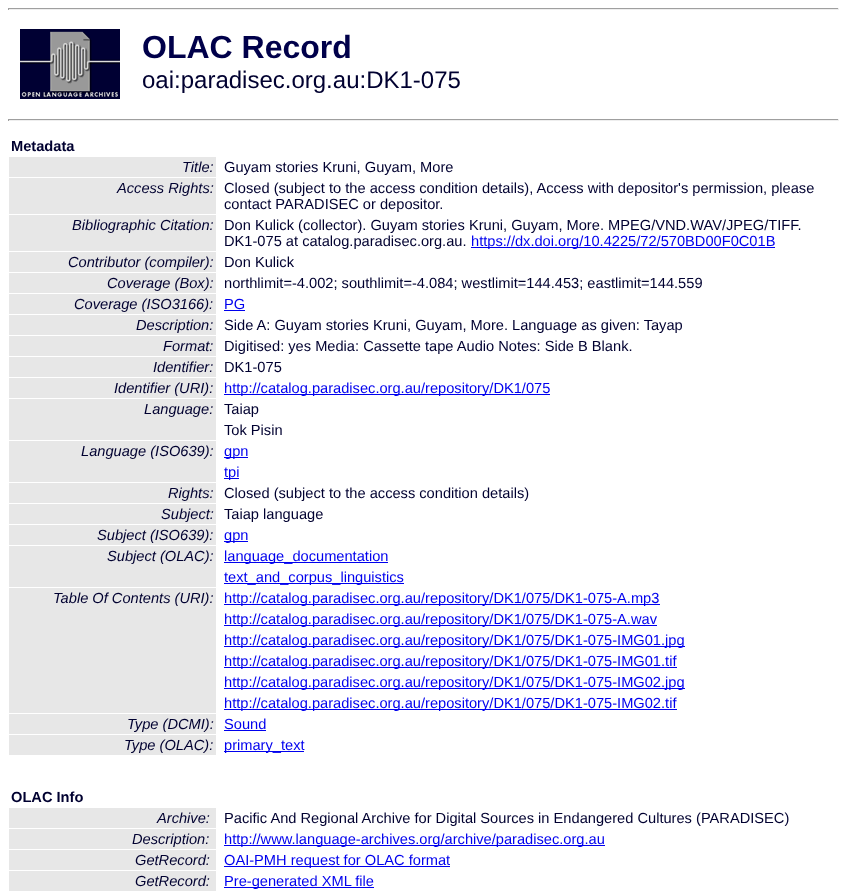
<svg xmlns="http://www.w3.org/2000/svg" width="847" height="896">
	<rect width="100%" height="100%" fill="#FFFFFF" />
	<rect x="8" y="8" width="831" height="1" fill="#9F9F9F" />
	<rect x="838" y="8" width="1" height="2" fill="#EEEEEE" />
	<rect x="8" y="9" width="831" height="1" fill="#EEEEEE" />
	<rect x="8" y="8" width="1" height="2" fill="#9F9F9F" />
	<image x="20" y="29" width="100" height="70" href="assets/img1.png" />
	<text x="142" y="58" font-family="Liberation Sans" font-size="32" font-weight="700" fill="#00004A">OLAC Record</text>
	<text x="142" y="88" font-family="Liberation Sans" font-size="24" fill="#000030">oai:paradisec.org.au:DK1-075</text>
	<rect x="8" y="119" width="831" height="1" fill="#9F9F9F" />
	<rect x="838" y="119" width="1" height="2" fill="#EEEEEE" />
	<rect x="8" y="120" width="831" height="1" fill="#EEEEEE" />
	<rect x="8" y="119" width="1" height="2" fill="#9F9F9F" />
	<text x="11" y="151" font-family="Liberation Sans" font-size="14.65" font-weight="700" fill="#000030">Metadata</text>
	<rect x="9" y="157" width="207" height="20" fill="#E7E7E7" />
	<text x="182" y="172" font-family="Liberation Sans" font-size="14.65" font-style="italic" fill="#000030">Title:</text>
	<text x="224" y="172" font-family="Liberation Sans" font-size="14.65" fill="#000030">Guyam stories Kruni, Guyam, More</text>
	<rect x="9" y="178" width="207" height="36" fill="#E7E7E7" />
	<text x="117" y="193" font-family="Liberation Sans" font-size="14.65" font-style="italic" fill="#000030">Access Rights:</text>
	<g font-family="Liberation Sans" font-size="14.65" fill="#000030">
		<text x="224" y="193">Closed (subject to the access condition details), Access with depositor's permission, please</text>
		<text x="224" y="209">contact PARADISEC or depositor.</text>
	</g>
	<rect x="9" y="215" width="207" height="36" fill="#E7E7E7" />
	<text x="72" y="230" font-family="Liberation Sans" font-size="14.65" font-style="italic" fill="#000030">Bibliographic Citation:</text>
	<g font-family="Liberation Sans" font-size="14.65" fill="#000030">
		<text x="224" y="230">Don Kulick (collector). Guyam stories Kruni, Guyam, More. MPEG/VND.WAV/JPEG/TIFF.</text>
		<text x="224" y="246">DK1-075 at catalog.paradisec.org.au.</text>
	</g>
	<rect x="471" y="247" width="304" height="1" fill="#0000EE" />
	<text x="471" y="246" font-family="Liberation Sans" font-size="14.65" fill="#0000EE">https://dx.doi.org/10.4225/72/570BD00F0C01B</text>
	<rect x="9" y="252" width="207" height="20" fill="#E7E7E7" />
	<text x="68" y="267" font-family="Liberation Sans" font-size="14.65" font-style="italic" fill="#000030">Contributor (compiler):</text>
	<text x="224" y="267" font-family="Liberation Sans" font-size="14.65" fill="#000030">Don Kulick</text>
	<rect x="9" y="273" width="207" height="20" fill="#E7E7E7" />
	<text x="107" y="288" font-family="Liberation Sans" font-size="14.65" font-style="italic" fill="#000030">Coverage (Box):</text>
	<text x="224" y="288" font-family="Liberation Sans" font-size="14.65" fill="#000030">northlimit=-4.002; southlimit=-4.084; westlimit=144.453; eastlimit=144.559</text>
	<rect x="9" y="294" width="207" height="20" fill="#E7E7E7" />
	<text x="74" y="309" font-family="Liberation Sans" font-size="14.65" font-style="italic" fill="#000030">Coverage (ISO3166):</text>
	<text x="224" y="309" font-family="Liberation Sans" font-size="14.65" fill="#0000EE">PG</text>
	<rect x="224" y="310" width="21" height="1" fill="#0000EE" />
	<rect x="9" y="315" width="207" height="20" fill="#E7E7E7" />
	<text x="136" y="330" font-family="Liberation Sans" font-size="14.65" font-style="italic" fill="#000030">Description:</text>
	<text x="224" y="330" font-family="Liberation Sans" font-size="14.65" fill="#000030">Side A: Guyam stories Kruni, Guyam, More. Language as given: Tayap</text>
	<rect x="9" y="336" width="207" height="20" fill="#E7E7E7" />
	<text x="163" y="351" font-family="Liberation Sans" font-size="14.65" font-style="italic" fill="#000030">Format:</text>
	<text x="224" y="351" font-family="Liberation Sans" font-size="14.65" fill="#000030">Digitised: yes Media: Cassette tape Audio Notes: Side B Blank.</text>
	<rect x="9" y="357" width="207" height="20" fill="#E7E7E7" />
	<text x="153" y="372" font-family="Liberation Sans" font-size="14.65" font-style="italic" fill="#000030">Identifier:</text>
	<text x="224" y="372" font-family="Liberation Sans" font-size="14.65" fill="#000030">DK1-075</text>
	<rect x="9" y="378" width="207" height="20" fill="#E7E7E7" />
	<text x="114" y="393" font-family="Liberation Sans" font-size="14.65" font-style="italic" fill="#000030">Identifier (URI):</text>
	<rect x="224" y="394" width="326" height="1" fill="#0000EE" />
	<text x="224" y="393" font-family="Liberation Sans" font-size="14.65" fill="#0000EE">http://catalog.paradisec.org.au/repository/DK1/075</text>
	<rect x="9" y="399" width="207" height="41" fill="#E7E7E7" />
	<text x="144" y="414" font-family="Liberation Sans" font-size="14.65" font-style="italic" fill="#000030">Language:</text>
	<g font-family="Liberation Sans" font-size="14.65" fill="#000030">
		<text x="224" y="414">Taiap</text>
		<text x="224" y="435">Tok Pisin</text>
	</g>
	<rect x="9" y="441" width="207" height="41" fill="#E7E7E7" />
	<text x="81" y="456" font-family="Liberation Sans" font-size="14.65" font-style="italic" fill="#000030">Language (ISO639):</text>
	<rect x="224" y="457" width="24" height="1" fill="#0000EE" />
	<text x="224" y="456" font-family="Liberation Sans" font-size="14.65" fill="#0000EE">gpn</text>
	<rect x="224" y="478" width="15" height="1" fill="#0000EE" />
	<text x="224" y="477" font-family="Liberation Sans" font-size="14.65" fill="#0000EE">tpi</text>
	<rect x="9" y="483" width="207" height="20" fill="#E7E7E7" />
	<text x="168" y="498" font-family="Liberation Sans" font-size="14.65" font-style="italic" fill="#000030">Rights:</text>
	<text x="224" y="498" font-family="Liberation Sans" font-size="14.65" fill="#000030">Closed (subject to the access condition details)</text>
	<rect x="9" y="504" width="207" height="20" fill="#E7E7E7" />
	<text x="161" y="519" font-family="Liberation Sans" font-size="14.65" font-style="italic" fill="#000030">Subject:</text>
	<text x="224" y="519" font-family="Liberation Sans" font-size="14.65" fill="#000030">Taiap language</text>
	<rect x="9" y="525" width="207" height="20" fill="#E7E7E7" />
	<text x="97" y="540" font-family="Liberation Sans" font-size="14.65" font-style="italic" fill="#000030">Subject (ISO639):</text>
	<rect x="224" y="541" width="24" height="1" fill="#0000EE" />
	<text x="224" y="540" font-family="Liberation Sans" font-size="14.65" fill="#0000EE">gpn</text>
	<rect x="9" y="546" width="207" height="41" fill="#E7E7E7" />
	<text x="107" y="561" font-family="Liberation Sans" font-size="14.65" font-style="italic" fill="#000030">Subject (OLAC):</text>
	<rect x="224" y="562" width="164" height="1" fill="#0000EE" />
	<text x="224" y="561" font-family="Liberation Sans" font-size="14.65" fill="#0000EE">language_documentation</text>
	<rect x="224" y="583" width="180" height="1" fill="#0000EE" />
	<text x="224" y="582" font-family="Liberation Sans" font-size="14.65" fill="#0000EE">text_and_corpus_linguistics</text>
	<rect x="9" y="588" width="207" height="125" fill="#E7E7E7" />
	<text x="53" y="603" font-family="Liberation Sans" font-size="14.65" font-style="italic" fill="#000030">Table Of Contents (URI):</text>
	<rect x="224" y="604" width="436" height="1" fill="#0000EE" />
	<text x="224" y="603" font-family="Liberation Sans" font-size="14.65" fill="#0000EE">http://catalog.paradisec.org.au/repository/DK1/075/DK1-075-A.mp3</text>
	<rect x="224" y="625" width="433" height="1" fill="#0000EE" />
	<text x="224" y="624" font-family="Liberation Sans" font-size="14.65" fill="#0000EE">http://catalog.paradisec.org.au/repository/DK1/075/DK1-075-A.wav</text>
	<rect x="224" y="646" width="461" height="1" fill="#0000EE" />
	<text x="224" y="645" font-family="Liberation Sans" font-size="14.65" fill="#0000EE">http://catalog.paradisec.org.au/repository/DK1/075/DK1-075-IMG01.jpg</text>
	<rect x="224" y="667" width="453" height="1" fill="#0000EE" />
	<text x="224" y="666" font-family="Liberation Sans" font-size="14.65" fill="#0000EE">http://catalog.paradisec.org.au/repository/DK1/075/DK1-075-IMG01.tif</text>
	<rect x="224" y="688" width="461" height="1" fill="#0000EE" />
	<text x="224" y="687" font-family="Liberation Sans" font-size="14.65" fill="#0000EE">http://catalog.paradisec.org.au/repository/DK1/075/DK1-075-IMG02.jpg</text>
	<rect x="224" y="709" width="453" height="1" fill="#0000EE" />
	<text x="224" y="708" font-family="Liberation Sans" font-size="14.65" fill="#0000EE">http://catalog.paradisec.org.au/repository/DK1/075/DK1-075-IMG02.tif</text>
	<rect x="9" y="714" width="207" height="20" fill="#E7E7E7" />
	<text x="127" y="729" font-family="Liberation Sans" font-size="14.65" font-style="italic" fill="#000030">Type (DCMI):</text>
	<text x="224" y="729" font-family="Liberation Sans" font-size="14.65" fill="#0000EE">Sound</text>
	<rect x="224" y="730" width="42" height="1" fill="#0000EE" />
	<rect x="9" y="735" width="207" height="20" fill="#E7E7E7" />
	<text x="124" y="750" font-family="Liberation Sans" font-size="14.65" font-style="italic" fill="#000030">Type (OLAC):</text>
	<rect x="224" y="751" width="80" height="1" fill="#0000EE" />
	<text x="224" y="750" font-family="Liberation Sans" font-size="14.65" fill="#0000EE">primary_text</text>
	<text x="11" y="802" font-family="Liberation Sans" font-size="14.65" font-weight="700" fill="#000030">OLAC Info</text>
	<rect x="9" y="808" width="207" height="20" fill="#E7E7E7" />
	<text x="157" y="823" font-family="Liberation Sans" font-size="14.65" font-style="italic" fill="#000030">Archive:</text>
	<text x="224" y="823" font-family="Liberation Sans" font-size="14.65" fill="#000030">Pacific And Regional Archive for Digital Sources in Endangered Cultures (PARADISEC)</text>
	<rect x="9" y="829" width="207" height="20" fill="#E7E7E7" />
	<text x="132" y="844" font-family="Liberation Sans" font-size="14.65" font-style="italic" fill="#000030">Description:</text>
	<rect x="224" y="845" width="381" height="1" fill="#0000EE" />
	<text x="224" y="844" font-family="Liberation Sans" font-size="14.65" fill="#0000EE">http://www.language-archives.org/archive/paradisec.org.au</text>
	<rect x="9" y="850" width="207" height="20" fill="#E7E7E7" />
	<text x="135" y="865" font-family="Liberation Sans" font-size="14.65" font-style="italic" fill="#000030">GetRecord:</text>
	<rect x="224" y="866" width="226" height="1" fill="#0000EE" />
	<text x="224" y="865" font-family="Liberation Sans" font-size="14.65" fill="#0000EE">OAI-PMH request for OLAC format</text>
	<rect x="9" y="871" width="207" height="20" fill="#E7E7E7" />
	<text x="135" y="886" font-family="Liberation Sans" font-size="14.65" font-style="italic" fill="#000030">GetRecord:</text>
	<rect x="224" y="887" width="150" height="1" fill="#0000EE" />
	<text x="224" y="886" font-family="Liberation Sans" font-size="14.65" fill="#0000EE">Pre-generated XML file</text>
</svg>
